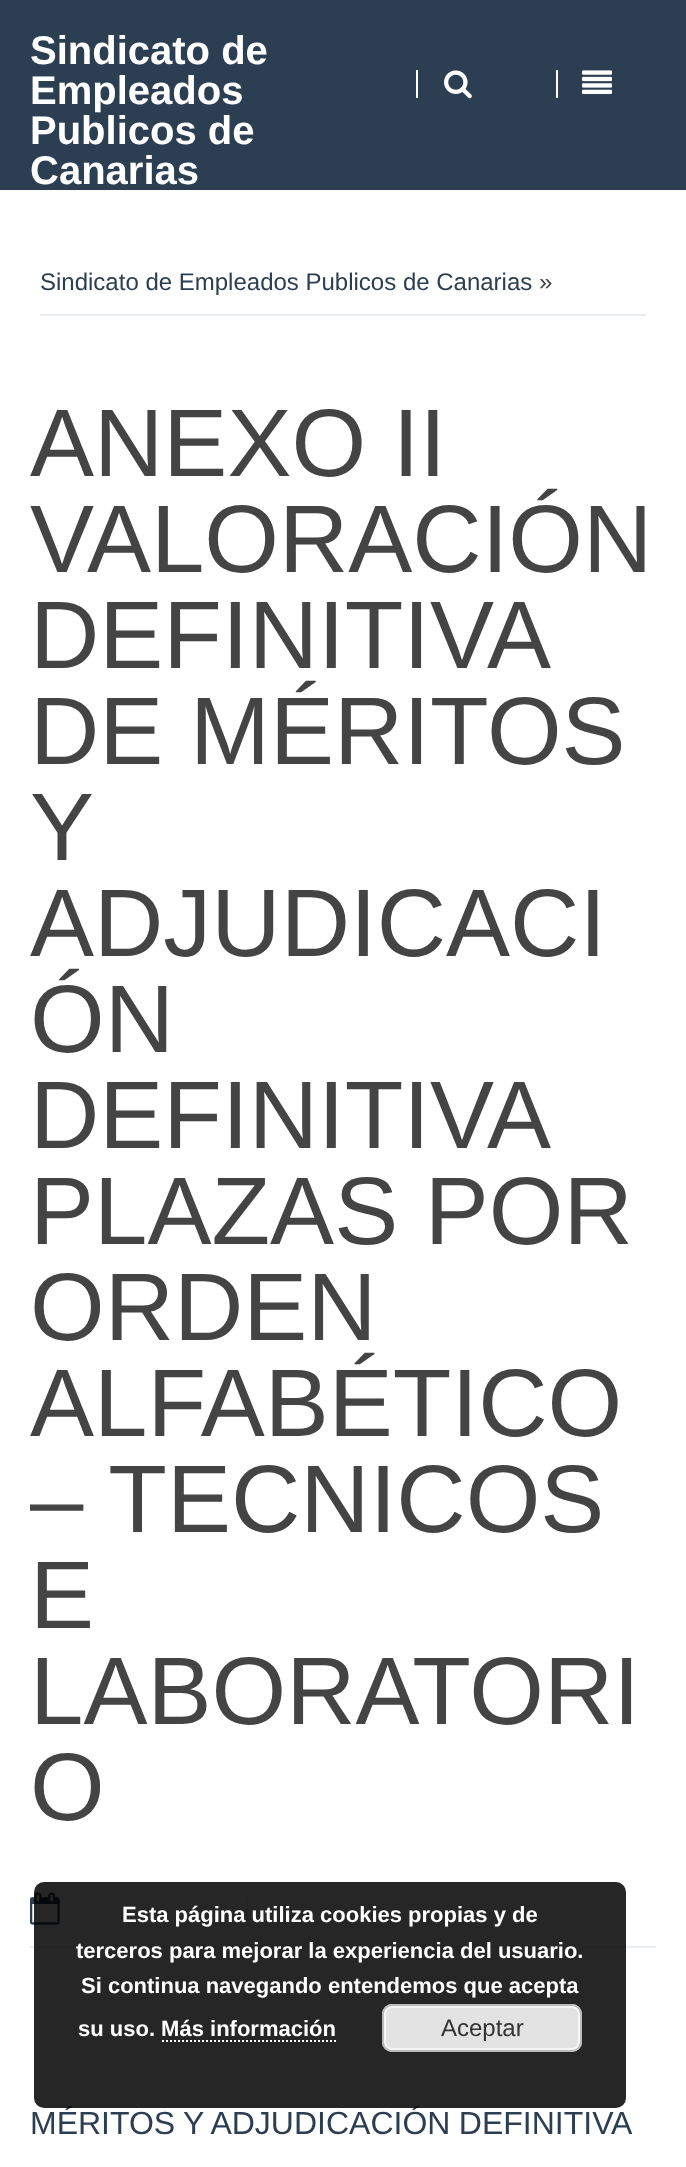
<svg xmlns="http://www.w3.org/2000/svg" width="686" height="2167">
	<rect width="100%" height="100%" fill="#FFFFFF" />
	<rect x="0" y="0" width="686" height="190" fill="#2C3E51" />
	<g font-family="Liberation Sans" font-size="40" font-weight="700" fill="#FFFFFF">
		<text x="30" y="64">Sindicato de</text>
		<text x="30" y="104">Empleados</text>
		<text x="30" y="144">Publicos de</text>
		<text x="30" y="184">Canarias</text>
	</g>
	<rect x="416" y="70" width="2" height="28" fill="#FFFFFF" />
	<image x="444" y="70" width="28" height="29" href="assets/img1.png" />
	<rect x="556" y="70" width="2" height="28" fill="#FFFFFF" />
	<image x="582" y="70" width="30" height="24" href="assets/img2.png" />
	<rect x="40" y="314" width="606" height="2" fill="#EBEFF1" />
	<text x="40" y="290" font-family="Liberation Sans" font-size="24" fill="#2C3E51">Sindicato de Empleados Publicos de Canarias</text>
	<text x="539" y="290" font-family="Liberation Sans" font-size="24" fill="#444444">»</text>
	<g font-family="Liberation Sans" font-size="96" fill="#444444">
		<text x="30" y="476">ANEXO II</text>
		<text x="30" y="572">VALORACIÓN</text>
		<text x="30" y="668">DEFINITIVA</text>
		<text x="30" y="764">DE MÉRITOS</text>
		<text x="30" y="860">Y</text>
		<text x="30" y="956">ADJUDICACI</text>
		<text x="30" y="1052">ÓN</text>
		<text x="30" y="1148">DEFINITIVA</text>
		<text x="30" y="1244">PLAZAS POR</text>
		<text x="30" y="1340">ORDEN</text>
		<text x="30" y="1436">ALFABÉTICO</text>
		<text x="30" y="1532">– TECNICOS</text>
		<text x="30" y="1628">E</text>
		<text x="30" y="1724">LABORATORI</text>
		<text x="30" y="1820">O</text>
	</g>
	<rect x="30" y="1946" width="626" height="2" fill="#EBEFF1" />
	<rect x="246" y="1894" width="2" height="32" fill="#EBEFF1" />
	<image x="30" y="1892" width="30" height="33" href="assets/img3.png" />
	<text x="30" y="2134" word-spacing="-0.5" font-family="Liberation Sans" font-size="32" fill="#2C3E51">MÉRITOS Y ADJUDICACIÓN DEFINITIVA</text>
	<rect x="34" y="1882" width="592" height="226" rx="10" fill="#000000" fill-opacity="0.85" />
	<g font-family="Liberation Sans" font-size="22" font-weight="700" fill="#FFFFFF">
		<text x="122" y="1922">Esta página utiliza cookies propias y de</text>
		<text x="76" y="1958">terceros para mejorar la experiencia del usuario.</text>
		<text x="81" y="1993">Si continua navegando entendemos que acepta</text>
		<text x="78" y="2036">su uso. Más información</text>
	</g>
	<rect x="382" y="2004" width="200" height="48" rx="10" fill="#E3E3E3" />
	<rect x="385" y="2007" width="194" height="42" rx="7" fill="none" stroke="#F6F6F6" stroke-width="2" />
	<rect x="383" y="2005" width="198" height="46" rx="9" fill="none" stroke="#BBBBBB" stroke-width="2" />
	<text x="441" y="2036" font-family="Liberation Sans" font-size="24" fill="#333333">Aceptar</text>
	<path d="M162 2041H336" fill="none" stroke="#FFFFFF" stroke-width="2" stroke-dasharray="2 2" />
</svg>
